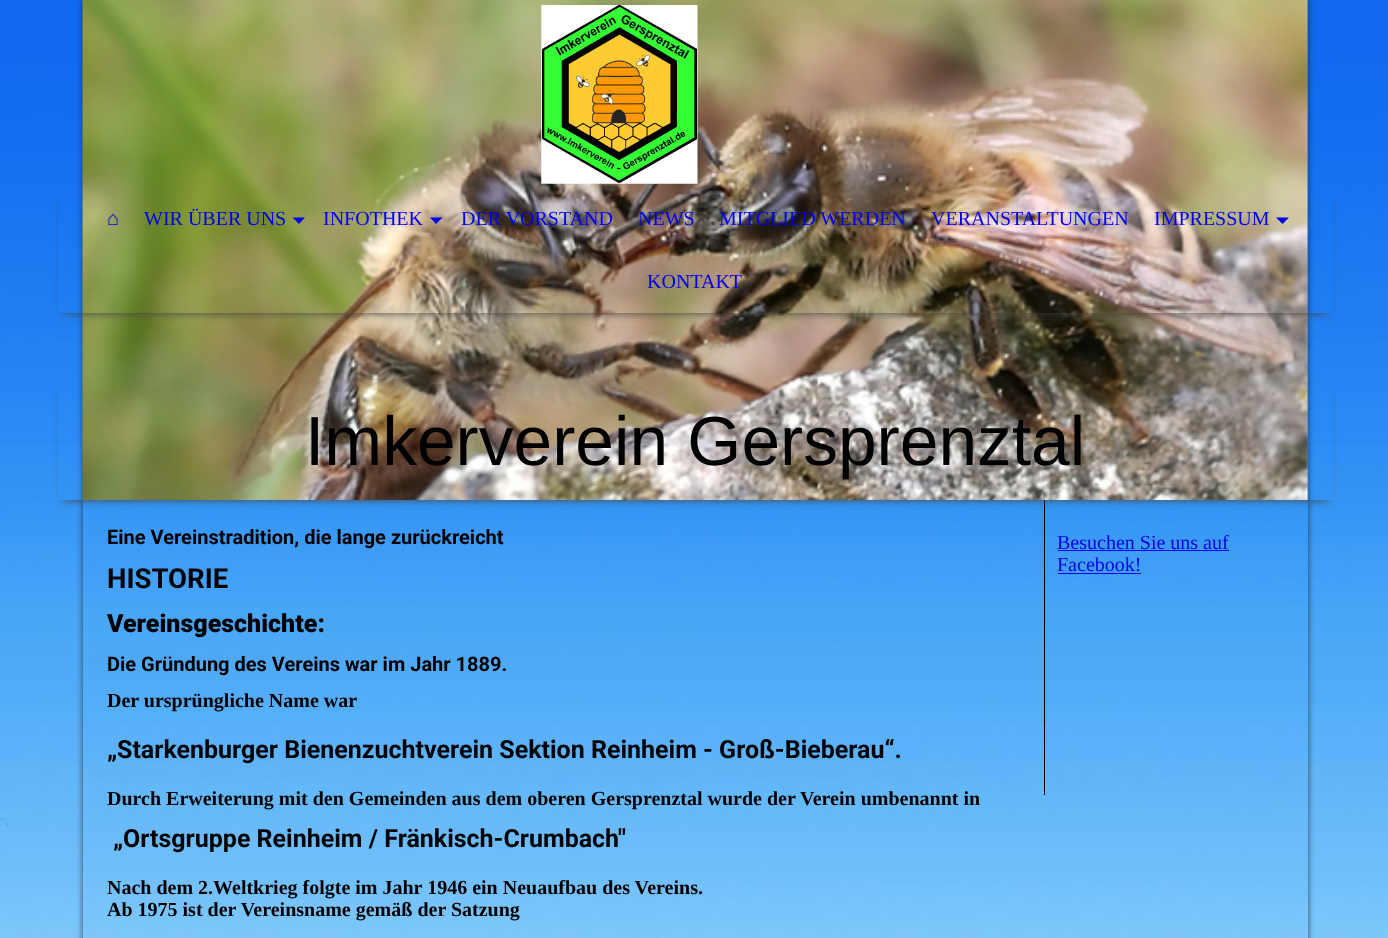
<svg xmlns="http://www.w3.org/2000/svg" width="1388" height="938">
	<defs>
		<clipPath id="clip1"><path d="M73 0H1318V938H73ZM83 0H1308V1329H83Z" clip-rule="evenodd" /></clipPath>
		<clipPath id="clip2"><path d="M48 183H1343V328H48ZM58 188H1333V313H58Z" clip-rule="evenodd" /></clipPath>
		<clipPath id="clip3"><path d="M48 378H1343V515H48ZM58 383H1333V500H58Z" clip-rule="evenodd" /></clipPath>
	</defs>
	<rect width="100%" height="100%" fill="#FFFFFF" />
	<image x="0" y="0" width="1388" height="938" href="assets/img1.png" />
	<g clip-path="url(#clip1)">
		<rect x="83" y="0" width="1225" height="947" fill="#141414" fill-opacity="0.7" filter="blur(3px)" />
	</g>
	<image x="82" y="0" width="1226" height="500" href="assets/img2.png" />
	<image x="541" y="5" width="157" height="179" href="assets/img3.png" />
	<g clip-path="url(#clip2)">
		<rect x="63" y="198" width="1265" height="115" fill="#444444" filter="blur(4.5px)" />
	</g>
	<g font-family="Liberation Serif" font-size="20" fill="#0000EE">
		<text x="107" y="225">⌂</text>
		<text x="144" y="225">WIR ÜBER UNS</text>
	</g>
	<path d="M292.5 217.5H305L299 224Z" fill="#0000EE" />
	<text x="323" y="225" font-family="Liberation Serif" font-size="20" fill="#0000EE">INFOTHEK</text>
	<path d="M430 217.5H442.5L436 224Z" fill="#0000EE" />
	<g font-family="Liberation Serif" font-size="20" fill="#0000EE">
		<text x="461" y="225">DER VORSTAND</text>
		<text x="638" y="225">NEWS</text>
		<text x="719" y="225">MITGLIED WERDEN</text>
		<text x="931" y="225">VERANSTALTUNGEN</text>
		<text x="1154" y="225">IMPRESSUM</text>
	</g>
	<path d="M1276 217.5H1289L1282.5 224Z" fill="#0000EE" />
	<text x="647" y="288" font-family="Liberation Serif" font-size="20" fill="#0000EE">KONTAKT</text>
	<rect x="1044" y="500" width="1" height="295" fill="#000000" />
	<g clip-path="url(#clip3)">
		<rect x="63" y="393" width="1265" height="107" fill="#444444" filter="blur(4.5px)" />
	</g>
	<text x="305" y="465" font-family="Liberation Sans" font-size="69.5" fill="#000000">Imkerverein Gersprenztal</text>
	<text x="107" y="544" font-family="Roboto" font-size="20" font-weight="700" fill="#000000">Eine Vereinstradition, die lange zurückreicht</text>
	<text x="107" y="588" font-family="Roboto" font-size="27.5" font-weight="700" fill="#000000">HISTORIE</text>
	<text x="107" y="632" font-family="Roboto" font-size="25" font-weight="900" fill="#000000">Vereinsgeschichte:</text>
	<text x="107" y="671" font-family="Roboto" font-size="20" font-weight="700" fill="#000000">Die Gründung des Vereins war im Jahr 1889.</text>
	<text x="107" y="707" font-family="Liberation Serif" font-size="20" font-weight="700" fill="#000000">Der ursprüngliche Name war</text>
	<text x="107" y="758" font-family="Roboto" font-size="25" font-weight="700" fill="#000000">„Starkenburger Bienenzuchtverein Sektion Reinheim - Groß-Bieberau“.</text>
	<text x="107" y="805" font-family="Liberation Serif" font-size="20" font-weight="700" fill="#000000">Durch Erweiterung mit den Gemeinden aus dem oberen Gersprenztal wurde der Verein umbenannt in</text>
	<text x="113" y="847" font-family="Roboto" font-size="25" font-weight="700" fill="#000000">„Ortsgruppe Reinheim / Fränkisch-Crumbach"</text>
	<g font-family="Liberation Serif" font-size="20" font-weight="700" fill="#000000">
		<text x="107" y="894">Nach dem 2.Weltkrieg folgte im Jahr 1946 ein Neuaufbau des Vereins.</text>
		<text x="107" y="916">Ab 1975 ist der Vereinsname gemäß der Satzung</text>
	</g>
	<text x="1057" y="549" font-family="Liberation Serif" font-size="20" fill="#0000EE">Besuchen Sie uns auf</text>
	<rect x="1058" y="550" width="171" height="1" fill="#0000EE" />
	<text x="1057" y="571" font-family="Liberation Serif" font-size="20" fill="#0000EE">Facebook!</text>
	<rect x="1058" y="573" width="83" height="1" fill="#0000EE" />
</svg>
